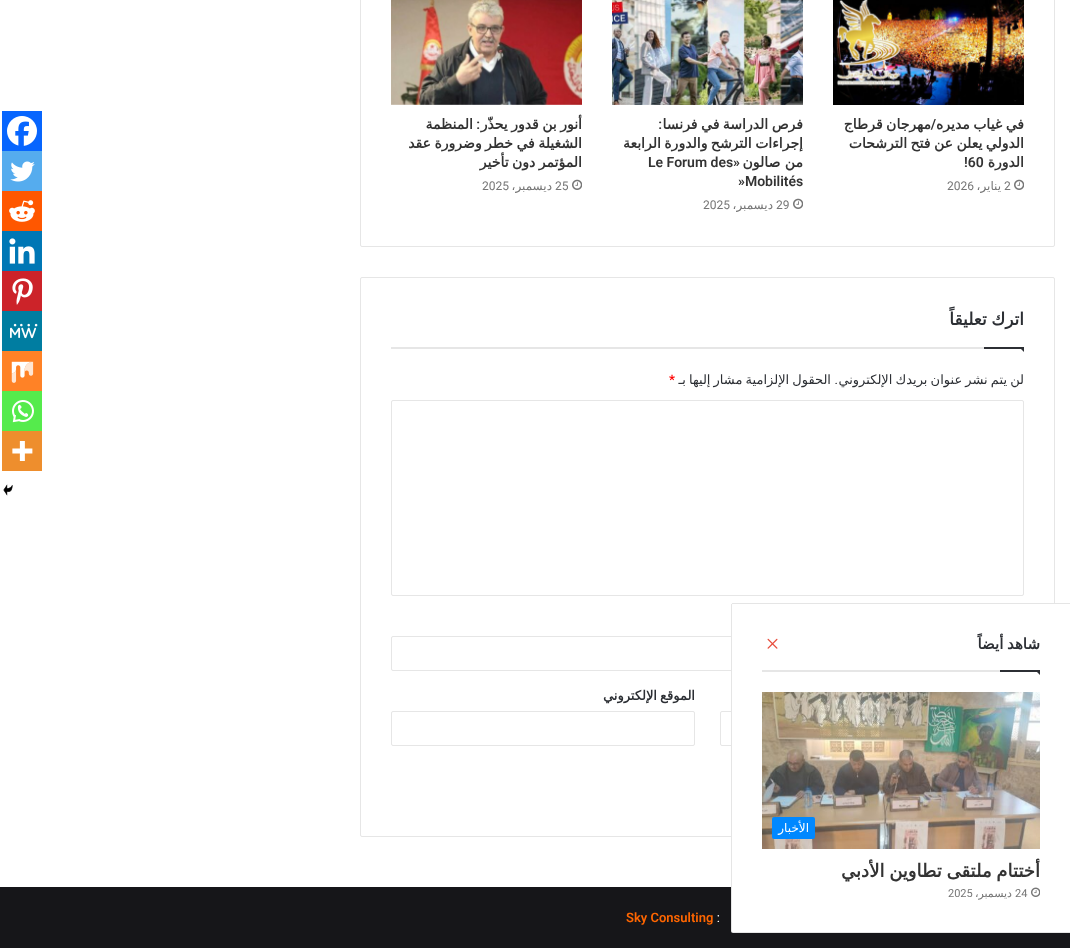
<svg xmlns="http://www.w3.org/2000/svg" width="1070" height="948">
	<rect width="100%" height="100%" fill="#FFFFFF" />
	<rect x="360.5" y="-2.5" width="694" height="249" rx="1.5" fill="none" stroke="#E6E6E6" />
	<image x="833" y="0" width="191" height="105" href="assets/img1.png" />
	<g font-family="DejaVu Sans" font-size="14" font-weight="700" direction="rtl" fill="#333333">
		<text x="1024" y="129" word-spacing="-1">في غياب مديره</text>
		<text x="931" y="129" word-spacing="-1">مهرجان قرطاج</text>
	</g>
	<text x="936" y="129" font-family="Roboto" font-size="14" font-weight="600" direction="rtl" fill="#333333">/</text>
	<g font-family="DejaVu Sans" font-size="14" font-weight="700" direction="rtl" fill="#333333">
		<text x="1024" y="148" word-spacing="-1">الدولي يعلن عن فتح الترشحات</text>
		<text x="1024" y="167">الدورة</text>
	</g>
	<text x="964" y="167" font-family="Roboto" font-size="14" font-weight="600" fill="#333333">!60</text>
	<image x="1014" y="179" width="10" height="11" href="assets/img2.png" />
	<text x="1004" y="190" font-family="Roboto" font-size="12" fill="#767676">2</text>
	<text x="1001" y="190" font-family="DejaVu Sans" font-size="12" direction="rtl" fill="#767676">يناير،</text>
	<text x="947" y="190" font-family="Roboto" font-size="12" fill="#767676">2026</text>
	<image x="612" y="0" width="191" height="105" href="assets/img3.png" />
	<text x="803" y="129" word-spacing="-1" font-family="DejaVu Sans" font-size="14" font-weight="700" direction="rtl" fill="#333333">فرص الدراسة في فرنسا</text>
	<text x="662" y="129" font-family="Roboto" font-size="14" font-weight="600" direction="rtl" fill="#333333">:</text>
	<g font-family="DejaVu Sans" font-size="14" font-weight="700" direction="rtl" fill="#333333">
		<text x="803" y="148" word-spacing="-1">إجراءات الترشح والدورة الرابعة</text>
		<text x="803" y="167">من صالون</text>
	</g>
	<text x="740" y="167" font-family="Roboto" font-size="14" font-weight="600" direction="rtl" fill="#333333">«</text>
	<g font-family="Roboto" font-size="14" font-weight="600" fill="#333333">
		<text x="648" y="167">Le Forum des</text>
		<text x="738" y="186">»Mobilités</text>
	</g>
	<image x="793" y="198" width="10" height="11" href="assets/img2.png" />
	<text x="776" y="209" font-family="Roboto" font-size="12" fill="#767676">29</text>
	<text x="773" y="209" font-family="DejaVu Sans" font-size="12" direction="rtl" fill="#767676">ديسمبر،</text>
	<text x="703" y="209" font-family="Roboto" font-size="12" fill="#767676">2025</text>
	<image x="391" y="0" width="191" height="105" href="assets/img4.png" />
	<text x="582" y="129" word-spacing="-1" font-family="DejaVu Sans" font-size="14" font-weight="700" direction="rtl" fill="#333333">أنور بن قدور يحذّر</text>
	<text x="480" y="129" font-family="Roboto" font-size="14" font-weight="600" direction="rtl" fill="#333333">:</text>
	<g font-family="DejaVu Sans" font-size="14" font-weight="700" direction="rtl" fill="#333333">
		<text x="473" y="129">المنظمة</text>
		<text x="582" y="148" word-spacing="-1">الشغيلة في خطر وضرورة عقد</text>
		<text x="582" y="167" word-spacing="-1">المؤتمر دون تأخير</text>
	</g>
	<image x="572" y="179" width="10" height="11" href="assets/img2.png" />
	<text x="555" y="190" font-family="Roboto" font-size="12" fill="#767676">25</text>
	<text x="552" y="190" font-family="DejaVu Sans" font-size="12" direction="rtl" fill="#767676">ديسمبر،</text>
	<text x="482" y="190" font-family="Roboto" font-size="12" fill="#767676">2025</text>
	<rect x="360.5" y="277.5" width="694" height="559" rx="1.5" fill="none" stroke="#E6E6E6" />
	<rect x="391" y="347" width="593" height="2" fill="#E6E6E6" />
	<text x="1024" y="325" word-spacing="-1" font-family="DejaVu Sans" font-size="17" font-weight="700" direction="rtl" fill="#2C2F34">اترك تعليقاً</text>
	<path d="M1019 347H1024V352Z" fill="#2C2F34" />
	<rect x="984" y="347" width="40" height="2" fill="#2C2F34" />
	<text x="1024" y="384" word-spacing="-1" font-family="DejaVu Sans" font-size="13" direction="rtl" fill="#2C2F34">لن يتم نشر عنوان بريدك الإلكتروني</text>
	<text x="838" y="384" font-family="Roboto" font-size="13" direction="rtl" fill="#2C2F34">.</text>
	<text x="831" y="384" word-spacing="-1" font-family="DejaVu Sans" font-size="13" direction="rtl" fill="#2C2F34">الحقول الإلزامية مشار إليها بـ</text>
	<text x="669" y="384" font-family="Roboto" font-size="13" font-weight="700" fill="#FF0000">*</text>
	<rect x="391.5" y="400.5" width="632" height="195" rx="1.5" fill="none" stroke="#E6E6E6" />
	<rect x="391.5" y="636.5" width="632" height="34" rx="1.5" fill="none" stroke="#E6E6E6" />
	<text x="695" y="700" word-spacing="-1" font-family="DejaVu Sans" font-size="13" font-weight="700" direction="rtl" fill="#2C2F34">الموقع الإلكتروني</text>
	<rect x="391.5" y="711.5" width="303" height="34" rx="1.5" fill="none" stroke="#E6E6E6" />
	<rect x="720.5" y="711.5" width="303" height="34" rx="1.5" fill="none" stroke="#E6E6E6" />
	<rect x="2" y="111" width="40" height="40" fill="#0765FE" />
	<image x="7" y="116" width="30" height="30" href="assets/img5.png" />
	<rect x="2" y="151" width="40" height="40" fill="#55ACEE" />
	<image x="10" y="161" width="25" height="21" href="assets/img6.png" />
	<rect x="2" y="191" width="40" height="40" fill="#FF5700" />
	<image x="9" y="200" width="26" height="22" href="assets/img7.png" />
	<rect x="2" y="231" width="40" height="40" fill="#0077B5" />
	<image x="9" y="238" width="26" height="26" href="assets/img8.png" />
	<rect x="2" y="271" width="40" height="40" fill="#CC2329" />
	<image x="12" y="278" width="21" height="27" href="assets/img9.png" />
	<rect x="2" y="311" width="40" height="40" fill="#007DA1" />
	<image x="10" y="323" width="28" height="16" href="assets/img10.png" />
	<rect x="2" y="351" width="40" height="40" fill="#FF8226" />
	<image x="11" y="361" width="23" height="22" href="assets/img11.png" />
	<rect x="2" y="391" width="40" height="40" fill="#55EB4C" />
	<image x="12" y="400" width="22" height="23" href="assets/img12.png" />
	<rect x="2" y="431" width="40" height="40" fill="#EE8E2D" />
	<image x="12" y="441" width="21" height="20" href="assets/img13.png" />
	<image x="3" y="484" width="10" height="12" href="assets/img14.png" />
	<rect x="0" y="887" width="1070" height="61" fill="#161619" />
	<path d="M733 603H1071V933H733C732 933 731 932 731 931V605C731 604 732 603 733 603Z" fill="#FFFFFF" />
	<path d="M733 603.5H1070.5V932.5H733C732 932.5 731.5 932 731.5 931V605C731.5 604 732 603.5 733 603.5Z" fill="none" stroke="#000000" stroke-opacity="0.1" />
	<rect x="762" y="670" width="238" height="2" fill="#E6E6E6" />
	<text x="1040" y="649" word-spacing="-1" font-family="DejaVu Sans" font-size="15" font-weight="700" direction="rtl" fill="#2C2F34">شاهد أيضاً</text>
	<image x="767" y="638" width="11" height="11" href="assets/img15.png" />
	<path d="M1035 670H1040V675Z" fill="#2C2F34" />
	<rect x="1000" y="670" width="40" height="2" fill="#2C2F34" />
	<image x="762" y="692" width="278" height="157" href="assets/img16.png" />
	<rect x="772" y="817" width="43" height="22" rx="2" fill="#0088FF" />
	<text x="809" y="832" font-family="DejaVu Sans" font-size="12" direction="rtl" fill="#FFFFFF">الأخبار</text>
	<text x="1040" y="877" word-spacing="-1" font-family="DejaVu Sans" font-size="18" font-weight="700" direction="rtl" fill="#333333">أختتام ملتقى تطاوين الأدبي</text>
	<image x="1031" y="887" width="9" height="10" href="assets/img17.png" />
	<text x="1015" y="897" font-family="Roboto" font-size="11" fill="#767676">24</text>
	<text x="1012" y="897" font-family="DejaVu Sans" font-size="11" direction="rtl" fill="#767676">ديسمبر،</text>
	<text x="948" y="897" font-family="Roboto" font-size="11" fill="#767676">2025</text>
	<text x="720" y="922" font-family="Roboto" font-size="13" direction="rtl" fill="#FFFFFF">:</text>
	<text x="626" y="922" font-family="Roboto" font-size="13" font-weight="600" fill="#FF6600">Sky Consulting</text>
</svg>
